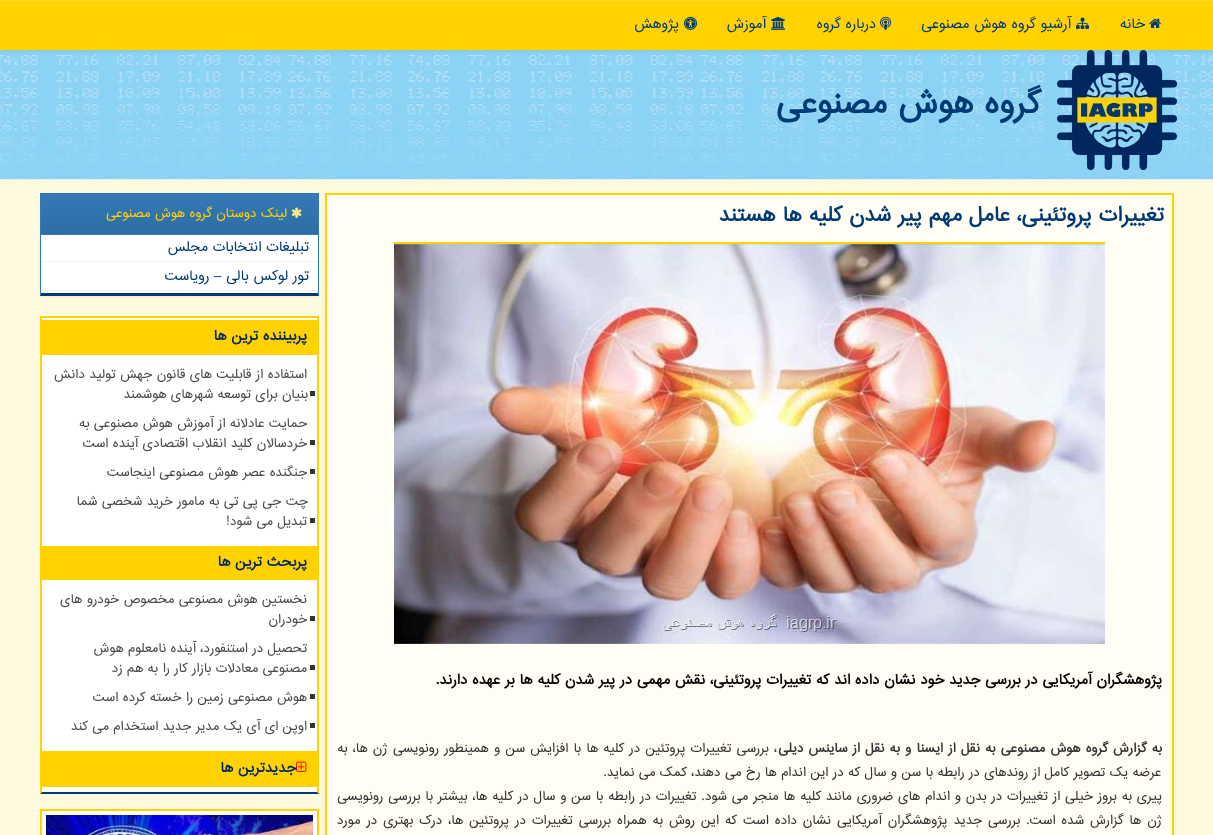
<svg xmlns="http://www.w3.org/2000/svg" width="1213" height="835">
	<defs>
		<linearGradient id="g1" gradientUnits="userSpaceOnUse" x1="180" y1="194" x2="180" y2="234"><stop offset="0" stop-color="#337AB7" /><stop offset="1" stop-color="#2E6DA4" /></linearGradient>
	</defs>
	<rect width="100%" height="100%" fill="#FFF9DE" />
	<image x="0" y="50" width="1213" height="129" href="assets/img6.png" />
	<rect x="0" y="1" width="1213" height="50" fill="#000000" fill-opacity="0.07" filter="blur(2.5px)" />
	<rect x="0" y="1" width="1213" height="49" fill="#FFD200" />
	<rect x="0" y="0" width="1213" height="1" fill="#FFD926" />
	<image x="1149" y="18" width="12" height="10" href="assets/img1.png" />
	<text x="1145" y="28" font-family="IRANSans" font-size="13" direction="rtl" fill="#003A75">خانه</text>
	<image x="1076" y="17" width="13" height="12" href="assets/img2.png" />
	<text x="1071" y="28" font-family="IRANSans" font-size="13" direction="rtl" fill="#003A75">آرشیو گروه هوش مصنوعی</text>
	<image x="880" y="16" width="12" height="14" href="assets/img3.png" />
	<text x="876" y="28" font-family="IRANSans" font-size="13" direction="rtl" fill="#003A75">درباره گروه</text>
	<image x="771" y="16" width="14" height="14" href="assets/img4.png" />
	<text x="766" y="28" font-family="IRANSans" font-size="13" direction="rtl" fill="#003A75">آموزش</text>
	<image x="684" y="16" width="13" height="14" href="assets/img5.png" />
	<text x="679" y="28" font-family="IRANSans" font-size="13" direction="rtl" fill="#003A75">پژوهش</text>
	<rect x="0" y="179" width="1213" height="1" fill="#EEEEEE" />
	<image x="1057" y="50" width="120" height="120" href="assets/img7.png" />
	<text x="1040" y="113" font-family="IRANSans" font-size="30" font-weight="700" direction="rtl" fill="#003A75">گروه هوش مصنوعی</text>
	<rect x="327" y="195" width="845" height="640" fill="#FFFDF4" />
	<rect x="325" y="193" width="849" height="2" fill="#FFD200" />
	<path d="M1174 193V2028L1172 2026V195Z" fill="#FFD200" />
	<path d="M325 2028V193L327 195V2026Z" fill="#FFD200" />
	<text x="1164" y="221" font-family="IRANSans" font-size="19.2" font-weight="700" direction="rtl" fill="#003A75">تغییرات پروتئینی، عامل مهم پیر شدن كلیه ها هستند</text>
	<rect x="394" y="242" width="711" height="2" fill="#FFD200" />
	<image x="394" y="244" width="711" height="400" href="assets/img8.png" />
	<text x="1162" y="684" font-family="IRANSans" font-size="13.2" font-weight="700" direction="rtl" fill="#000000">پژوهشگران آمریکایی در بررسی جدید خود نشان داده اند که تغییرات پروتئینی، نقش مهمی در پیر شدن کلیه ها بر عهده دارند.</text>
	<text x="1162" y="752" word-spacing="0.75" font-family="IRANSans" font-size="12" font-weight="700" direction="rtl" fill="#333333">به گزارش گروه هوش مصنوعی به نقل از ایسنا و به نقل از ساینس دیلی</text>
	<g font-family="IRANSans" font-size="12" direction="rtl" fill="#333333">
		<text x="777" y="752" word-spacing="0.75">، بررسی تغییرات پروتئین در کلیه ها با افزایش سن و همینطور رونویسی ژن ها، به</text>
		<text x="1161" y="776">عرضه یک تصویر کامل از روندهای در رابطه با سن و سال که در این اندام ها رخ می دهند، کمک می نماید.</text>
		<text x="1162" y="800" word-spacing="0.4">پیری به بروز خیلی از تغییرات در بدن و اندام های ضروری مانند کلیه ها منجر می شود. تغییرات در رابطه با سن و سال در کلیه ها، بیشتر با بررسی رونویسی</text>
		<text x="1162" y="824" word-spacing="1.55">ژن ها گزارش شده است. بررسی جدید پژوهشگران آمریکایی نشان داده است که این روش به همراه بررسی تغییرات در پروتئین ها، درک بهتری در مورد</text>
	</g>
	<rect x="40" y="194" width="279" height="103" fill="#000000" fill-opacity="0.05" filter="blur(1px)" />
	<rect x="41" y="235" width="277" height="58" fill="#FFFFFF" />
	<rect x="40" y="193" width="279" height="1" fill="#337AB7" />
	<path d="M319 193V296L318 293V194Z" fill="#337AB7" />
	<path d="M319 296H40L41 293H318Z" fill="#003A75" />
	<path d="M40 296V193L41 194V293Z" fill="#337AB7" />
	<rect x="41" y="234" width="277" height="1" fill="#337AB7" />
	<rect x="41" y="194" width="277" height="40" fill="url(#g1)" />
	<image x="291" y="207" width="11" height="11" href="assets/img9.png" />
	<text x="287" y="217" font-family="IRANSans" font-size="12" direction="rtl" fill="#FFD200">لینک دوستان گروه هوش مصنوعی</text>
	<rect x="41" y="261" width="277" height="1" fill="#F1F1F1" />
	<text x="309" y="251" font-family="IRANSans" font-size="13" direction="rtl" fill="#003A75">تبلیغات انتخابات مجلس</text>
	<rect x="41" y="290" width="277" height="1" fill="#F1F1F1" />
	<text x="309" y="280" font-family="IRANSans" font-size="13" direction="rtl" fill="#003A75">تور لوکس بالی – رویاست</text>
	<rect x="40" y="318" width="279" height="476" fill="#FFFFFF" />
	<rect x="40" y="316" width="279" height="2" fill="#FFD200" />
	<path d="M319 316V794L317 792V318Z" fill="#FFD200" />
	<path d="M319 794H40L42 792H317Z" fill="#003A75" />
	<path d="M40 794V316L42 318V792Z" fill="#FFD200" />
	<rect x="42" y="320" width="275" height="35" fill="#FFD200" />
	<text x="307" y="340" font-family="IRANSans" font-size="13.2" font-weight="700" direction="rtl" fill="#002761">پربیننده ترین ها</text>
	<rect x="310" y="391" width="5" height="5" fill="#333333" />
	<g font-family="IRANSans" font-size="12" direction="rtl" fill="#4A4A4A">
		<text x="307" y="378">استفاده از قابلیت های قانون جهش تولید دانش</text>
		<text x="308" y="398">بنیان برای توسعه شهرهای هوشمند</text>
	</g>
	<rect x="310" y="440" width="5" height="5" fill="#333333" />
	<g font-family="IRANSans" font-size="12" direction="rtl" fill="#4A4A4A">
		<text x="307" y="427">حمایت عادلانه از آموزش هوش مصنوعی به</text>
		<text x="307" y="447">خردسالان کلید انقلاب اقتصادی آینده است</text>
	</g>
	<rect x="310" y="469" width="5" height="5" fill="#333333" />
	<text x="307" y="476" font-family="IRANSans" font-size="12" direction="rtl" fill="#4A4A4A">جنگنده عصر هوش مصنوعی اینجاست</text>
	<rect x="310" y="518" width="5" height="5" fill="#333333" />
	<g font-family="IRANSans" font-size="12" direction="rtl" fill="#4A4A4A">
		<text x="308" y="505">چت جی پی تی به مامور خرید شخصی شما</text>
		<text x="307" y="525">تبدیل می شود!</text>
	</g>
	<rect x="42" y="546" width="275" height="34" fill="#FFD200" />
	<text x="307" y="566" font-family="IRANSans" font-size="13.2" font-weight="700" direction="rtl" fill="#002761">پربحث ترین ها</text>
	<rect x="310" y="616" width="5" height="5" fill="#333333" />
	<g font-family="IRANSans" font-size="12" direction="rtl" fill="#4A4A4A">
		<text x="307" y="603">نخستین هوش مصنوعی مخصوص خودرو های</text>
		<text x="307" y="623">خودران</text>
	</g>
	<rect x="310" y="665" width="5" height="5" fill="#333333" />
	<g font-family="IRANSans" font-size="12" direction="rtl" fill="#4A4A4A">
		<text x="307" y="652">تحصیل در استنفورد، آینده نامعلوم هوش</text>
		<text x="307" y="672">مصنوعی معادلات بازار کار را به هم زد</text>
	</g>
	<rect x="310" y="694" width="5" height="5" fill="#333333" />
	<text x="307" y="701" font-family="IRANSans" font-size="12" direction="rtl" fill="#4A4A4A">هوش مصنوعی زمین را خسته کرده است</text>
	<rect x="310" y="723" width="5" height="5" fill="#333333" />
	<text x="307" y="730" font-family="IRANSans" font-size="12" direction="rtl" fill="#4A4A4A">اوپن ای آی یک مدیر جدید استخدام می کند</text>
	<rect x="42" y="751" width="275" height="36" fill="#FFD200" />
	<image x="296" y="761" width="11" height="11" href="assets/img10.png" />
	<text x="296" y="772" font-family="IRANSans" font-size="13.2" font-weight="700" direction="rtl" fill="#002761">جدیدترین ها</text>
	<rect x="40" y="810" width="279" height="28" fill="#000000" fill-opacity="0.07" filter="blur(1px)" />
	<rect x="42" y="811" width="275" height="24" fill="#FFFFFF" />
	<rect x="40" y="809" width="279" height="2" fill="#FFD200" />
	<path d="M319 809V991L317 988V811Z" fill="#FFD200" />
	<path d="M40 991V809L42 811V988Z" fill="#FFD200" />
	<image x="46" y="815" width="267" height="20" href="assets/img11.png" />
</svg>
